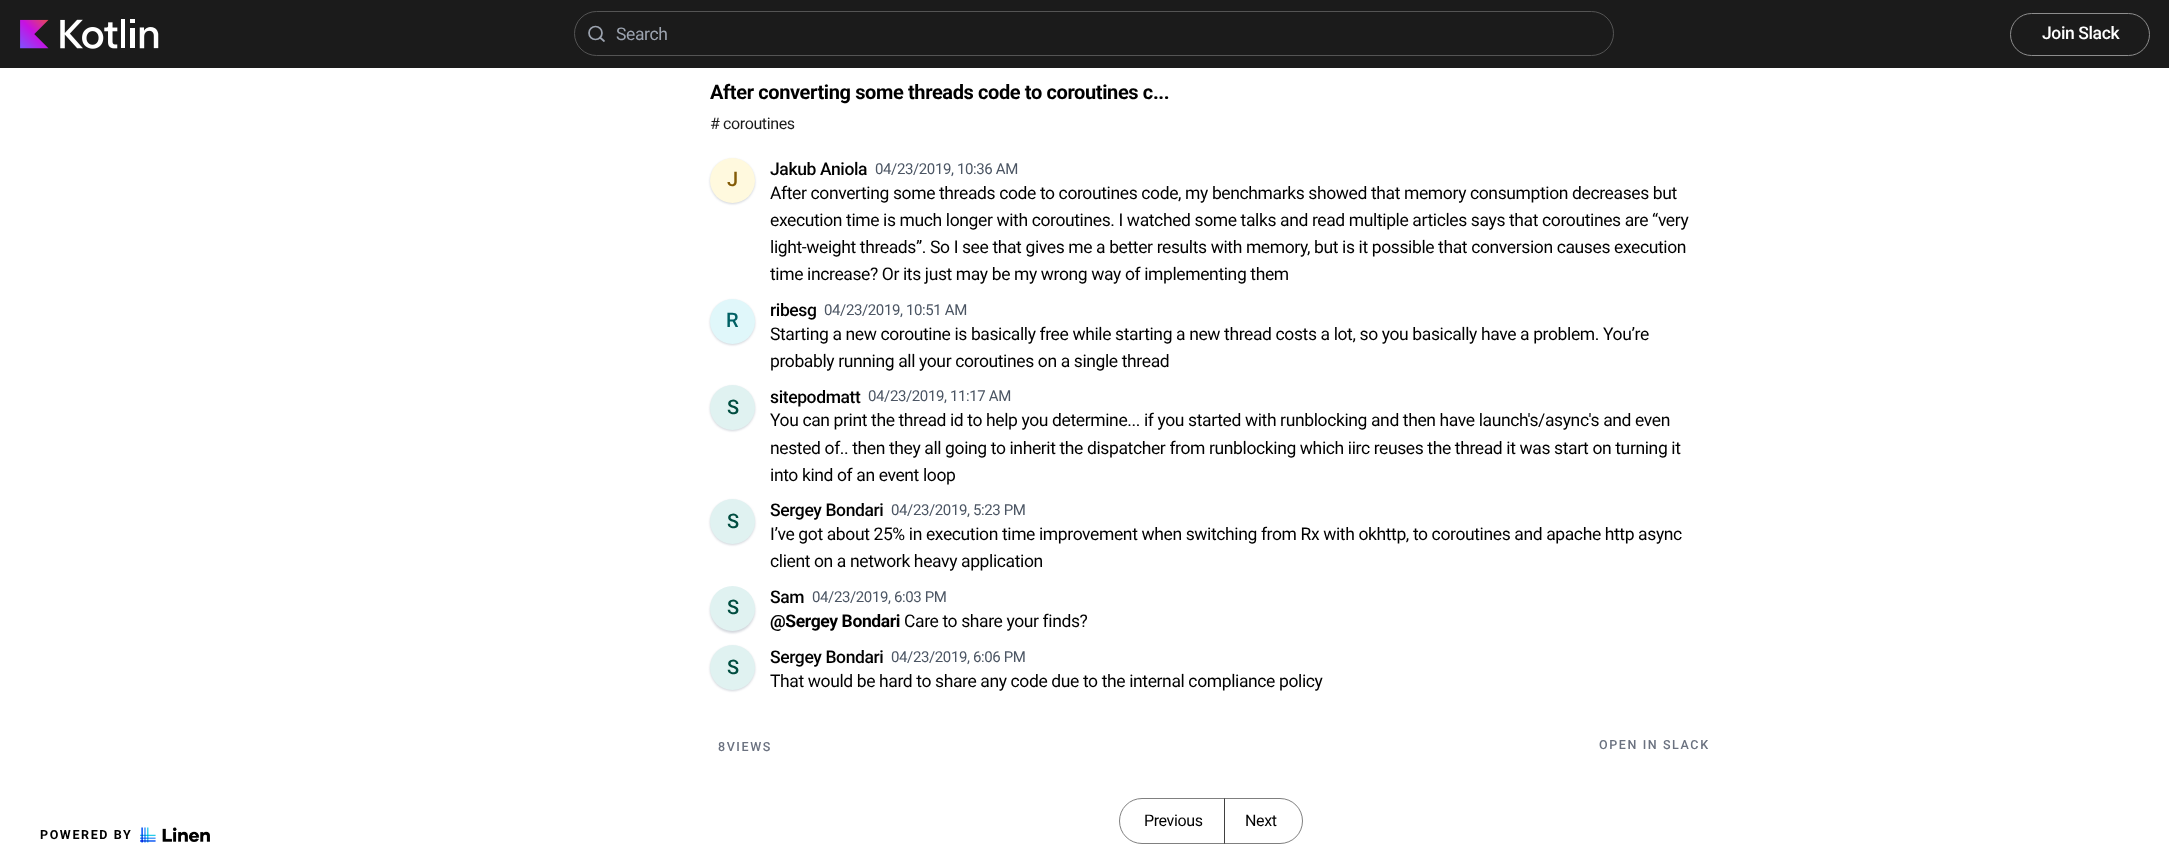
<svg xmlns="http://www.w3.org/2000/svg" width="2169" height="854">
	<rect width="100%" height="100%" fill="#FFFFFF" />
	<rect x="0" y="0" width="2169" height="68" fill="#1B1B1B" />
	<image x="20" y="19" width="139" height="30" href="assets/img1.png" />
	<rect x="574.5" y="11.5" width="1039" height="44" rx="22" fill="none" stroke="#545454" />
	<circle cx="595.5" cy="33" r="6.5" fill="none" stroke="#9CA3AF" stroke-width="1.7" />
	<path d="M604 41L600 37.5" fill="none" stroke="#9CA3AF" stroke-width="1.7" stroke-linecap="round" stroke-linejoin="round" />
	<text x="616" y="40" font-family="Roboto" font-size="17.5" letter-spacing="-0.38" fill="#9CA3AF">Search</text>
	<rect x="2010.5" y="13.5" width="139" height="42" rx="21" fill="none" stroke="#8D8D8D" />
	<text x="2042" y="39" font-family="Roboto" font-size="17.5" font-weight="500" letter-spacing="-0.38" fill="#FFFFFF">Join Slack</text>
	<text x="710" y="99" font-family="Roboto" font-size="20" font-weight="700" letter-spacing="-0.38" fill="#000000">After converting some threads code to coroutines c...</text>
	<text x="710" y="129" font-family="Roboto" font-size="16" letter-spacing="-0.38" fill="#1A1A1A"># coroutines</text>
	<rect x="710" y="159" width="45" height="45" rx="22.5" fill="#D1D5DB" filter="blur(1px)" />
	<circle cx="732.5" cy="180.5" r="22.5" fill="#FFF9DE" />
	<text x="727" y="186" font-family="Roboto" font-size="20" font-weight="500" letter-spacing="-0.38" fill="#845C07">J</text>
	<text x="770" y="175" font-family="Roboto" font-size="17.5" font-weight="500" letter-spacing="-0.38" fill="#000000">Jakub Aniola</text>
	<text x="875" y="174" font-family="Roboto" font-size="15" letter-spacing="-0.38" fill="#4B5563">04/23/2019, 10:36 AM</text>
	<g font-family="Roboto" font-size="17.5" letter-spacing="-0.38" fill="#000000">
		<text x="770" y="199">After converting some threads code to coroutines code, my benchmarks showed that memory consumption decreases but</text>
		<text x="770" y="226">execution time is much longer with coroutines. I watched some talks and read multiple articles says that coroutines are “very</text>
		<text x="770" y="253">light-weight threads”. So I see that gives me a better results with memory, but is it possible that conversion causes execution</text>
		<text x="770" y="280">time increase? Or its just may be my wrong way of implementing them</text>
	</g>
	<rect x="710" y="300" width="45" height="45" rx="22.5" fill="#D1D5DB" filter="blur(1px)" />
	<circle cx="732.5" cy="321.5" r="22.5" fill="#E0F7FA" />
	<text x="726" y="327" font-family="Roboto" font-size="20" font-weight="500" letter-spacing="-0.38" fill="#006064">R</text>
	<text x="770" y="316" font-family="Roboto" font-size="17.5" font-weight="500" letter-spacing="-0.38" fill="#000000">ribesg</text>
	<text x="824" y="315" font-family="Roboto" font-size="15" letter-spacing="-0.38" fill="#4B5563">04/23/2019, 10:51 AM</text>
	<g font-family="Roboto" font-size="17.5" letter-spacing="-0.38" fill="#000000">
		<text x="770" y="340">Starting a new coroutine is basically free while starting a new thread costs a lot, so you basically have a problem. You’re</text>
		<text x="770" y="367">probably running all your coroutines on a single thread</text>
	</g>
	<rect x="710" y="386" width="45" height="45" rx="22.5" fill="#D1D5DB" filter="blur(1px)" />
	<circle cx="732.5" cy="407.5" r="22.5" fill="#E0F2F1" />
	<text x="727" y="414" font-family="Roboto" font-size="20" font-weight="500" letter-spacing="-0.38" fill="#004D40">S</text>
	<text x="770" y="403" font-family="Roboto" font-size="17.5" font-weight="500" letter-spacing="-0.38" fill="#000000">sitepodmatt</text>
	<text x="868" y="401" font-family="Roboto" font-size="15" letter-spacing="-0.38" fill="#4B5563">04/23/2019, 11:17 AM</text>
	<g font-family="Roboto" font-size="17.5" letter-spacing="-0.38" fill="#000000">
		<text x="770" y="426">You can print the thread id to help you determine... if you started with runblocking and then have launch's/async's and even</text>
		<text x="770" y="454">nested of.. then they all going to inherit the dispatcher from runblocking which iirc reuses the thread it was start on turning it</text>
		<text x="770" y="481">into kind of an event loop</text>
	</g>
	<rect x="710" y="500" width="45" height="45" rx="22.5" fill="#D1D5DB" filter="blur(1px)" />
	<circle cx="732.5" cy="521.5" r="22.5" fill="#E0F2F1" />
	<text x="727" y="528" font-family="Roboto" font-size="20" font-weight="500" letter-spacing="-0.38" fill="#004D40">S</text>
	<text x="770" y="516" font-family="Roboto" font-size="17.5" font-weight="500" letter-spacing="-0.38" fill="#000000">Sergey Bondari</text>
	<text x="891" y="515" font-family="Roboto" font-size="15" letter-spacing="-0.38" fill="#4B5563">04/23/2019, 5:23 PM</text>
	<g font-family="Roboto" font-size="17.5" letter-spacing="-0.38" fill="#000000">
		<text x="770" y="540">I’ve got about 25% in execution time improvement when switching from Rx with okhttp, to coroutines and apache http async</text>
		<text x="770" y="567">client on a network heavy application</text>
	</g>
	<rect x="710" y="588" width="45" height="45" rx="22.5" fill="#D1D5DB" filter="blur(1px)" />
	<circle cx="732.5" cy="608.5" r="22.5" fill="#E0F2F1" />
	<text x="727" y="614" font-family="Roboto" font-size="20" font-weight="500" letter-spacing="-0.38" fill="#004D40">S</text>
	<text x="770" y="603" font-family="Roboto" font-size="17.5" font-weight="500" letter-spacing="-0.38" fill="#000000">Sam</text>
	<text x="812" y="602" font-family="Roboto" font-size="15" letter-spacing="-0.38" fill="#4B5563">04/23/2019, 6:03 PM</text>
	<text x="770" y="627" font-family="Roboto" font-size="17.5" font-weight="700" letter-spacing="-0.38" fill="#000000">@Sergey Bondari</text>
	<text x="904" y="627" font-family="Roboto" font-size="17.5" letter-spacing="-0.38" fill="#000000">Care to share your finds?</text>
	<rect x="710" y="646" width="45" height="45" rx="22.5" fill="#D1D5DB" filter="blur(1px)" />
	<circle cx="732.5" cy="667.5" r="22.5" fill="#E0F2F1" />
	<text x="727" y="674" font-family="Roboto" font-size="20" font-weight="500" letter-spacing="-0.38" fill="#004D40">S</text>
	<text x="770" y="663" font-family="Roboto" font-size="17.5" font-weight="500" letter-spacing="-0.38" fill="#000000">Sergey Bondari</text>
	<text x="891" y="662" font-family="Roboto" font-size="15" letter-spacing="-0.38" fill="#4B5563">04/23/2019, 6:06 PM</text>
	<text x="770" y="687" font-family="Roboto" font-size="17.5" letter-spacing="-0.38" fill="#000000">That would be hard to share any code due to the internal compliance policy</text>
	<g font-family="Roboto" font-size="12.5" font-weight="500" letter-spacing="1.6" fill="#6B7280">
		<text x="718" y="751">8VIEWS</text>
		<text x="1599" y="749">OPEN IN SLACK</text>
	</g>
	<path d="M1142 798.5H1224.5V843.5H1142C1129.5 843.5 1119.5 833.5 1119.5 821C1119.5 808.5 1129.5 798.5 1142 798.5Z" fill="none" stroke="#808080" />
	<text x="1144" y="826" font-family="Roboto" font-size="16" letter-spacing="-0.38" fill="#000000">Previous</text>
	<path d="M1224.5 798.5H1280C1292.5 798.5 1302.5 808.5 1302.5 821C1302.5 833.5 1292.5 843.5 1280 843.5H1224.5Z" fill="none" stroke="#000000" stroke-opacity="0.5" />
	<text x="1245" y="826" font-family="Roboto" font-size="16" letter-spacing="-0.38" fill="#000000">Next</text>
	<text x="40" y="839" font-family="Roboto" font-size="12.5" font-weight="700" letter-spacing="1.6" fill="#000000">POWERED BY</text>
	<image x="140" y="827" width="70" height="16" href="assets/img2.png" />
</svg>
